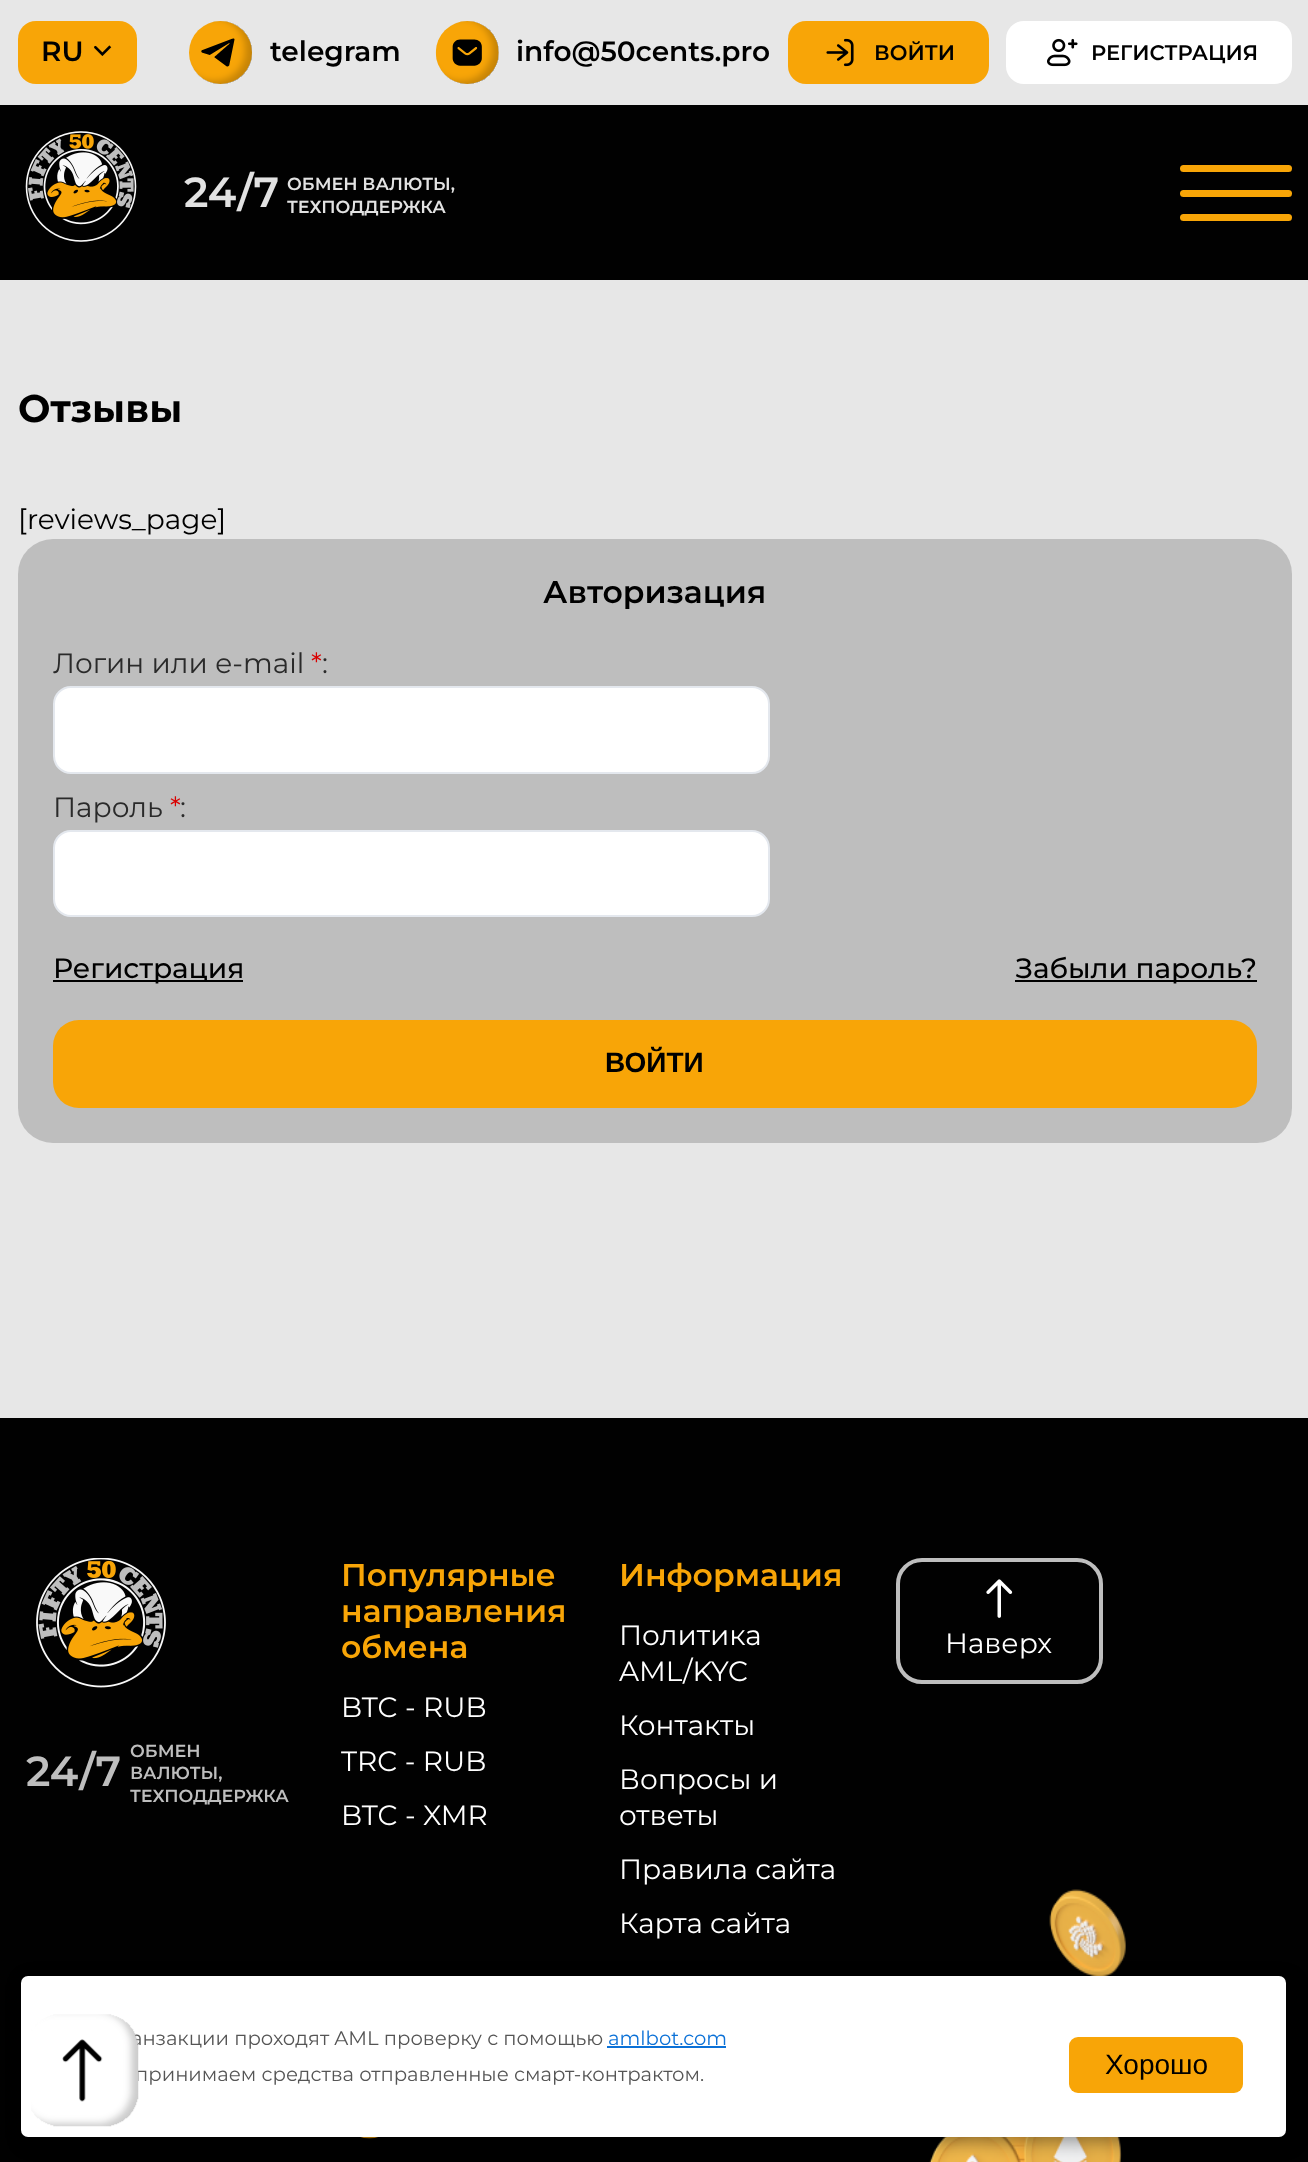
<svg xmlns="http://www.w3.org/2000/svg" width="1308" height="2162">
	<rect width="100%" height="100%" fill="#E7E7E7" />
	<rect x="18" y="21" width="119" height="63" rx="18" fill="#F8A507" />
	<text x="41" y="61" font-family="Montserrat" font-size="28" font-weight="600" fill="#000000">RU</text>
	<image x="94" y="45" width="18" height="11" href="assets/img1.png" />
	<image x="189" y="21" width="63" height="63" href="assets/img2.png" />
	<text x="270" y="61" font-family="Montserrat" font-size="28" font-weight="600" fill="#000000">telegram</text>
	<image x="435" y="21" width="64" height="63" href="assets/img3.png" />
	<text x="516" y="61" font-family="Montserrat" font-size="28" font-weight="600" fill="#000000">info@50cents.pro</text>
	<rect x="788" y="21" width="201" height="63" rx="18" fill="#F8A507" />
	<image x="826" y="38" width="28" height="29" href="assets/img4.png" />
	<text x="874" y="60" font-family="Montserrat" font-size="21" font-weight="600" fill="#000000">ВОЙТИ</text>
	<rect x="1006" y="21" width="286" height="63" rx="18" fill="#FFFFFF" />
	<image x="1047" y="38" width="31" height="29" href="assets/img5.png" />
	<text x="1091" y="60" font-family="Montserrat" font-size="21" font-weight="600" fill="#000000">РЕГИСТРАЦИЯ</text>
	<rect x="0" y="105" width="1308" height="175" fill="#010101" />
	<image x="25" y="131" width="112" height="111" href="assets/img6.png" />
	<text x="184" y="207" font-family="Montserrat" font-size="42" font-weight="600" fill="#E2E2E2">24/7</text>
	<g font-family="Montserrat" font-size="17.5" font-weight="600" fill="#E2E2E2">
		<text x="287" y="190">ОБМЕН ВАЛЮТЫ,</text>
		<text x="287" y="213">ТЕХПОДДЕРЖКА</text>
	</g>
	<rect x="1180" y="165" width="112" height="7" rx="3.5" fill="#F8A507" />
	<rect x="1180" y="190" width="112" height="7" rx="3.5" fill="#F8A507" />
	<rect x="1180" y="214" width="112" height="7" rx="3.5" fill="#F8A507" />
	<text x="18" y="422" font-family="Montserrat" font-size="38.5" font-weight="700" fill="#000000">Отзывы</text>
	<text x="18" y="529" font-family="Montserrat" font-size="28" fill="#000000">[reviews_page]</text>
	<rect x="18" y="539" width="1274" height="604" rx="35" fill="#BEBEBE" />
	<text x="543" y="603" font-family="Montserrat" font-size="31.5" font-weight="600" fill="#000000">Авторизация</text>
	<text x="53" y="673" font-family="Montserrat" font-size="28" fill="#2A2A2A">Логин или e-mail</text>
	<text x="311" y="673" font-family="Montserrat" font-size="28" fill="#DA0000">*</text>
	<text x="322" y="673" font-family="Montserrat" font-size="28" fill="#2A2A2A">:</text>
	<rect x="54" y="687" width="715" height="86" rx="17" fill="#FFFFFF" stroke="#E4E8EE" stroke-width="2" />
	<text x="53" y="817" font-family="Montserrat" font-size="28" fill="#2A2A2A">Пароль</text>
	<text x="170" y="817" font-family="Montserrat" font-size="28" fill="#DA0000">*</text>
	<text x="180" y="817" font-family="Montserrat" font-size="28" fill="#2A2A2A">:</text>
	<rect x="54" y="831" width="715" height="85" rx="17" fill="#FFFFFF" stroke="#E4E8EE" stroke-width="2" />
	<rect x="53" y="980" width="190" height="2" fill="#000000" />
	<text x="53" y="978" font-family="Montserrat" font-size="28" font-weight="500" fill="#000000">Регистрация</text>
	<rect x="1015" y="980" width="242" height="2" fill="#000000" />
	<text x="1015" y="978" font-family="Montserrat" font-size="28" font-weight="500" fill="#000000">Забыли пароль?</text>
	<rect x="53" y="1020" width="1204" height="88" rx="26" fill="#F8A507" />
	<text x="605" y="1072" font-family="Liberation Sans" font-size="28" font-weight="700" fill="#000000">ВОЙТИ</text>
	<rect x="0" y="1418" width="1308" height="744" fill="#010101" />
	<image x="929" y="1889" width="197" height="273" href="assets/img7.png" />
	<g font-family="Montserrat" font-size="31.5" font-weight="600" fill="#F8A507">
		<text x="341" y="1586">Популярные</text>
		<text x="341" y="1622">направления</text>
		<text x="341" y="1658">обмена</text>
	</g>
	<g font-family="Montserrat" font-size="28" fill="#FFFFFF">
		<text x="341" y="1717">BTC - RUB</text>
		<text x="341" y="1771">TRC - RUB</text>
		<text x="341" y="1825">BTC - XMR</text>
	</g>
	<text x="619" y="1586" font-family="Montserrat" font-size="31.5" font-weight="600" fill="#F8A507">Информация</text>
	<g font-family="Montserrat" font-size="28" fill="#FFFFFF">
		<text x="619" y="1645">Политика</text>
		<text x="619" y="1681">AML/KYC</text>
		<text x="619" y="1735">Контакты</text>
		<text x="619" y="1789">Вопросы и</text>
		<text x="619" y="1825">ответы</text>
		<text x="619" y="1879">Правила сайта</text>
		<text x="619" y="1933">Карта сайта</text>
	</g>
	<rect x="898" y="1560" width="203" height="122" rx="24" fill="none" stroke="#BEBEBE" stroke-width="4" />
	<image x="986" y="1579" width="27" height="39" href="assets/img8.png" />
	<text x="945" y="1653" font-family="Montserrat" font-size="28" fill="#FFFFFF">Наверх</text>
	<image x="36" y="1558" width="130" height="130" href="assets/img9.png" />
	<text x="26" y="1786" font-family="Montserrat" font-size="42" font-weight="600" fill="#BEBEBE">24/7</text>
	<g font-family="Montserrat" font-size="17.5" font-weight="600" fill="#BEBEBE">
		<text x="130" y="1757">ОБМЕН</text>
		<text x="130" y="1779">ВАЛЮТЫ,</text>
		<text x="130" y="1802">ТЕХПОДДЕРЖКА</text>
	</g>
	<image x="360" y="2137" width="19" height="2" href="assets/img10.png" />
	<rect x="25" y="1981" width="1265" height="161" rx="7" fill="#000000" fill-opacity="0.4" filter="blur(9px)" />
	<rect x="21" y="1976" width="1265" height="161" rx="7" fill="#FFFFFF" />
	<g font-family="Montserrat" font-size="19.6" fill="#555555">
		<text x="131" y="2045">анзакции проходят AML проверку с помощью</text>
		<text x="135" y="2081">принимаем средства отправленные смарт-контрактом.</text>
	</g>
	<image x="31" y="2014" width="108" height="113" href="assets/img11.png" />
	<text x="608" y="2045" font-family="Montserrat" font-size="19.6" fill="#0B71D7">amlbot.com</text>
	<rect x="607" y="2046" width="119" height="2" fill="#0B71D7" />
	<rect x="1069" y="2037" width="174" height="56" rx="9" fill="#F8A507" />
	<text x="1105" y="2074" font-family="Liberation Sans" font-size="28" fill="#000000">Хорошо</text>
</svg>
